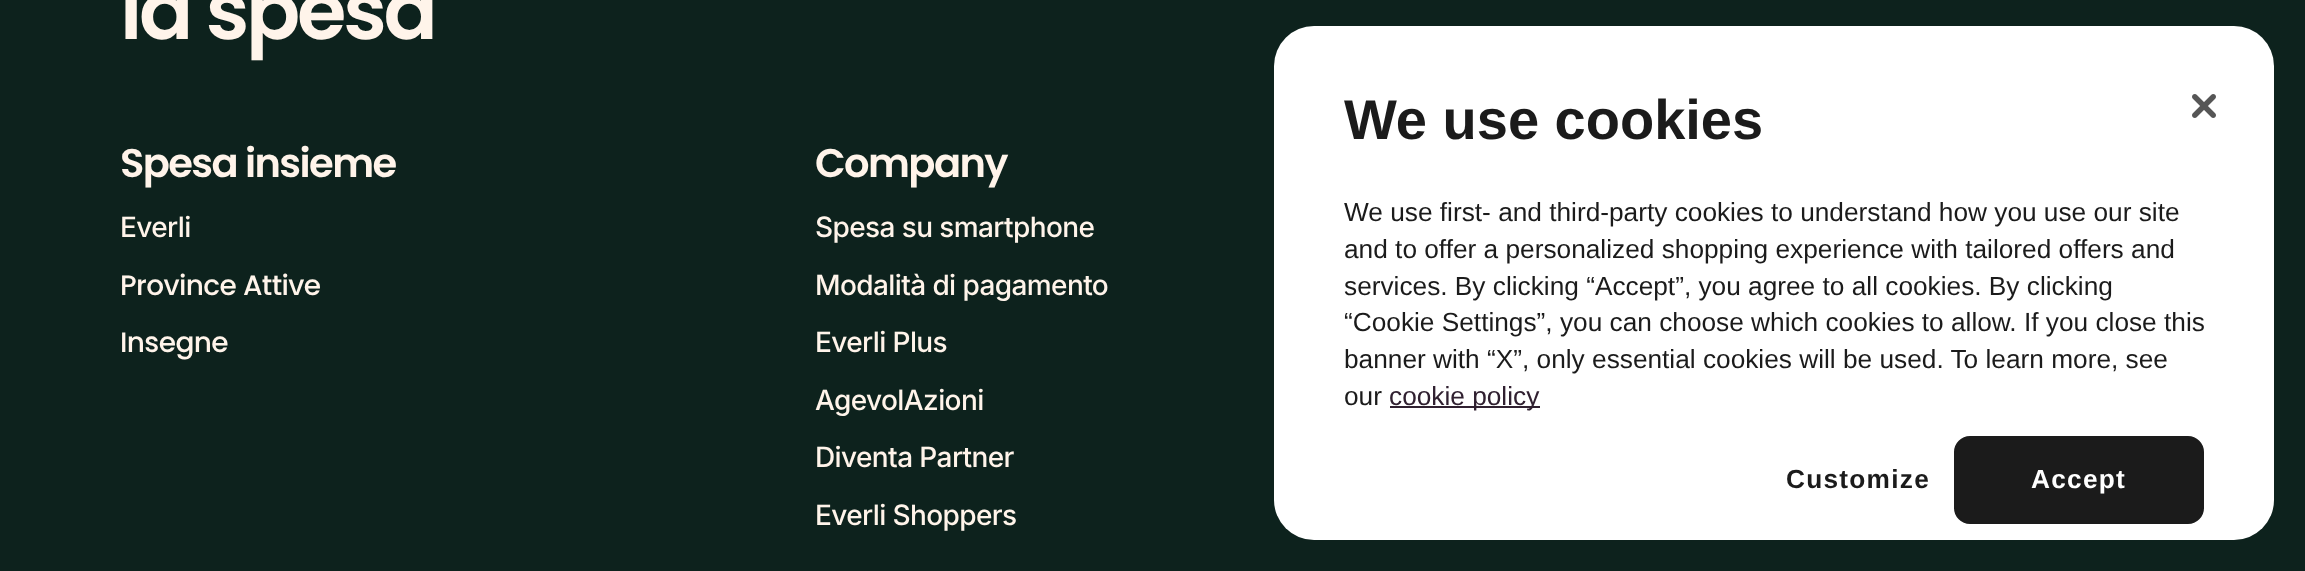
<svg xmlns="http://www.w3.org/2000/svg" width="2305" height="571">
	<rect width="100%" height="100%" fill="#0D221D" />
	<text x="120" y="39" font-family="Poppins" font-size="80" font-weight="600" letter-spacing="-3.25" fill="#FFF4EA">la spesa</text>
	<text x="120" y="177" font-family="Poppins" font-size="40" font-weight="600" letter-spacing="-1.6" fill="#FFF4EA">Spesa insieme</text>
	<text x="120" y="237" font-family="Inter" font-size="28" font-weight="500" letter-spacing="-0.6" fill="#FFF4EA">Everli</text>
	<g font-family="Poppins" font-size="28" font-weight="500" letter-spacing="-0.6" fill="#FFF4EA">
		<text x="120" y="295">Province Attive</text>
		<text x="120" y="352">Insegne</text>
	</g>
	<text x="815" y="177" font-family="Poppins" font-size="40" font-weight="600" letter-spacing="-1.6" fill="#FFF4EA">Company</text>
	<g font-family="Inter" font-size="28" font-weight="500" letter-spacing="-0.6" fill="#FFF4EA">
		<text x="815" y="237">Spesa su smartphone</text>
		<text x="815" y="295">Modalità di pagamento</text>
		<text x="815" y="352">Everli Plus</text>
		<text x="815" y="410">AgevolAzioni</text>
		<text x="815" y="467">Diventa Partner</text>
		<text x="815" y="525">Everli Shoppers</text>
	</g>
	<rect x="1274" y="26" width="1000" height="514" rx="40" fill="#FFFFFF" />
	<text x="1344" y="139" font-family="Liberation Sans" font-size="56" font-weight="700" fill="#1B1B1B">We use cookies</text>
	<g font-family="Liberation Sans" font-size="26.25" fill="#1B1B1B">
		<text x="1344" y="221">We use first- and third-party cookies to understand how you use our site</text>
		<text x="1344" y="258">and to offer a personalized shopping experience with tailored offers and</text>
		<text x="1344" y="295">services. By clicking “Accept”, you agree to all cookies. By clicking</text>
		<text x="1344" y="331">“Cookie Settings”, you can choose which cookies to allow. If you close this</text>
		<text x="1344" y="368">banner with “X”, only essential cookies will be used. To learn more, see</text>
		<text x="1344" y="405">our</text>
	</g>
	<rect x="1390" y="406" width="150" height="2" fill="#302030" />
	<text x="1389" y="405" font-family="Liberation Sans" font-size="26.25" fill="#302030">cookie policy</text>
	<image x="2192" y="94" width="24" height="24" href="assets/img1.png" />
	<text x="1786" y="488" font-family="Liberation Sans" font-size="26.25" font-weight="700" letter-spacing="1.25" fill="#1B1B1B">Customize</text>
	<rect x="1955" y="437" width="248" height="86" rx="15" fill="#1B1B1B" stroke="#1B1B1B" stroke-width="2" />
	<text x="2031" y="488" font-family="Liberation Sans" font-size="26.25" font-weight="700" letter-spacing="1.25" fill="#FFFFFF">Accept</text>
</svg>
